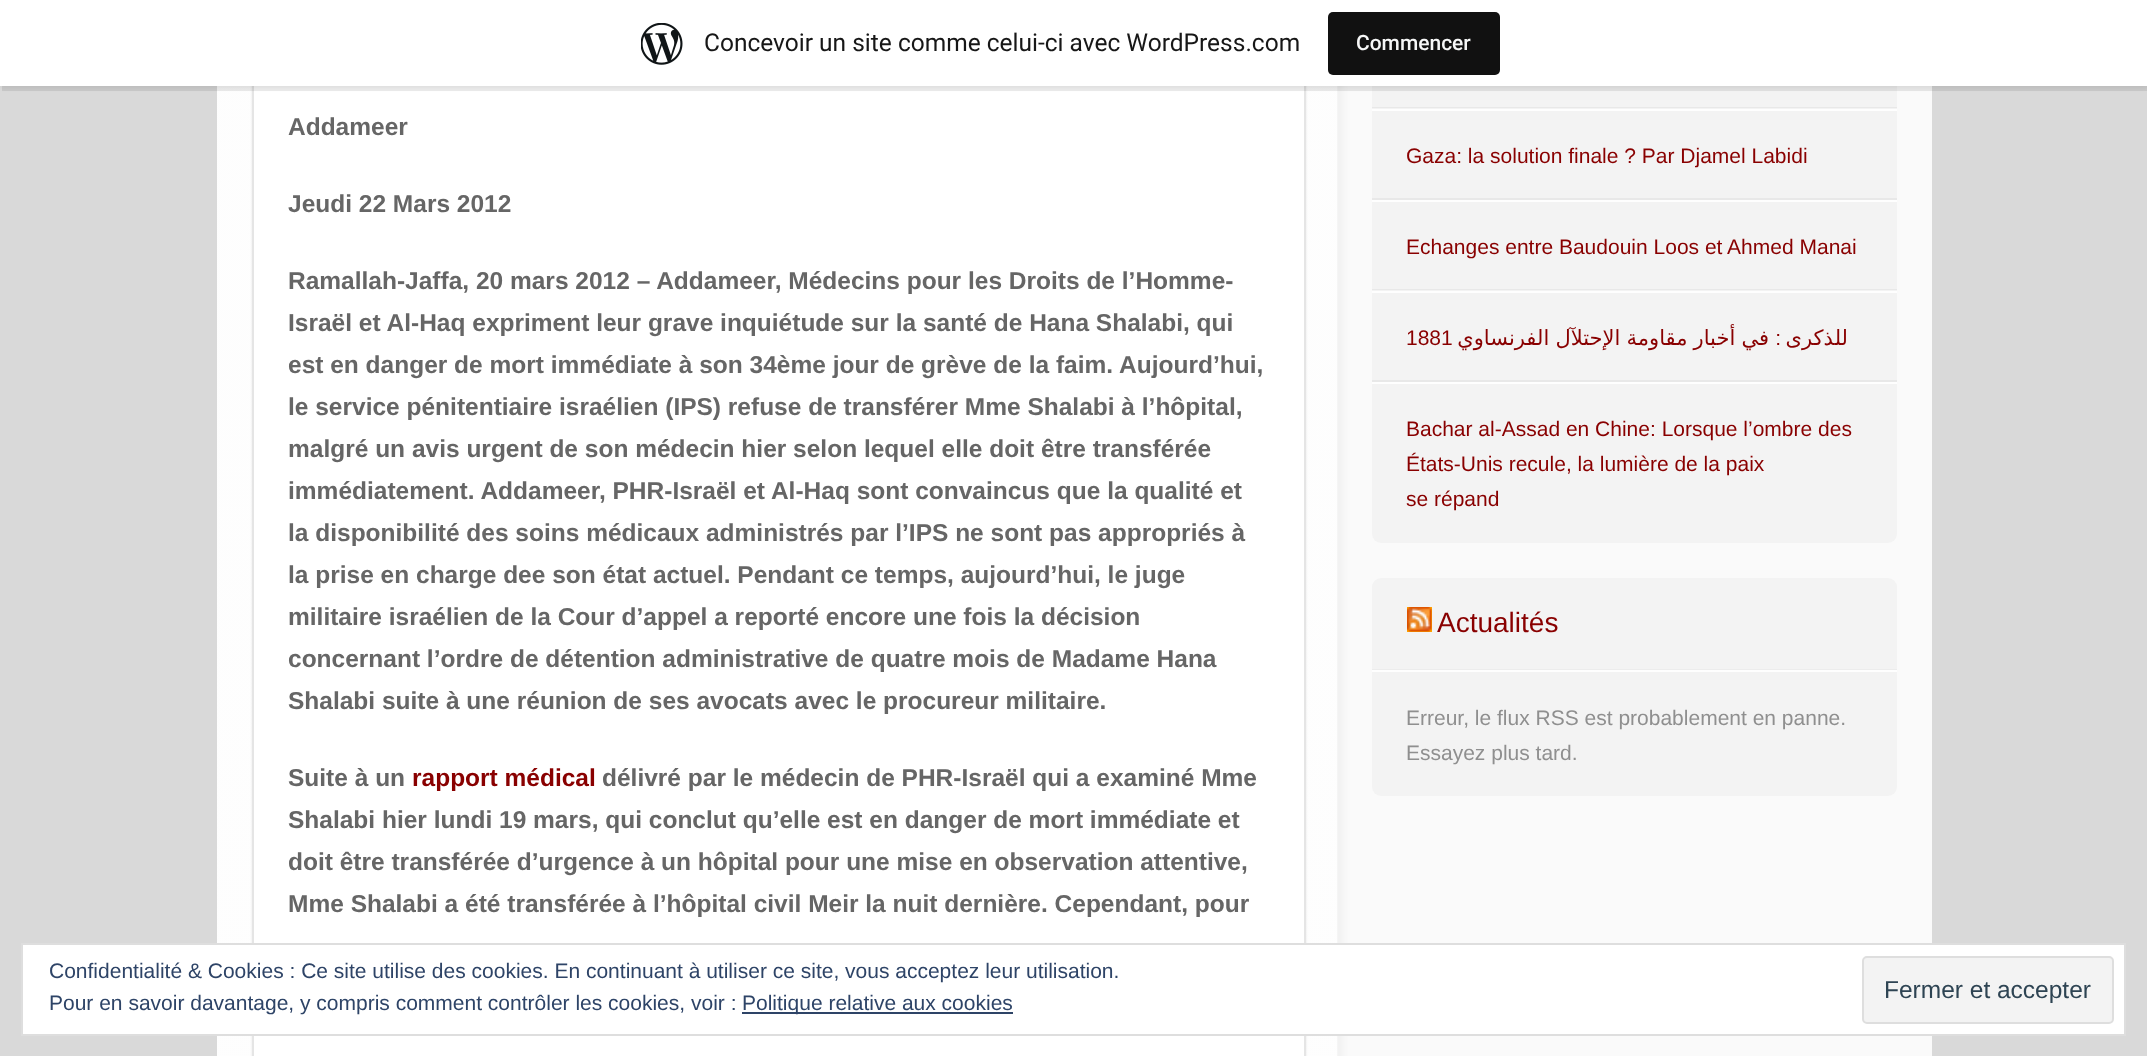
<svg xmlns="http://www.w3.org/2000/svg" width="2147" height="1056">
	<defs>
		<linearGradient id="g1" gradientUnits="userSpaceOnUse" x1="217" y1="-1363" x2="217" y2="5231"><stop offset="0" stop-color="#FDFDFD" /><stop offset="1" stop-color="#FFFFFF" /></linearGradient>
	</defs>
	<rect width="100%" height="100%" fill="#D9D9D9" />
	<image x="1337" y="86" width="595" height="970" href="assets/img2.png" />
	<rect x="217" y="86" width="1120" height="970" fill="url(#g1)" />
	<rect x="252" y="-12" width="1054" height="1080" rx="9" fill="#E7E7E7" filter="blur(1px)" />
	<rect x="254" y="86" width="1050" height="970" fill="#FFFFFF" />
	<rect x="253" y="-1" width="1052" height="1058" fill="none" stroke="#E5E5E5" stroke-width="2" />
	<rect x="1372" y="-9" width="525" height="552" rx="9" fill="#F3F3F3" />
	<rect x="0" y="2" width="2147" height="86" fill="#000000" fill-opacity="0.05" filter="blur(2px)" />
	<path d="M2 86V91H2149V5H2147V86Z" fill="#000000" fill-opacity="0.08" />
	<rect x="0" y="0" width="2147" height="86" fill="#FFFFFF" />
	<image x="641" y="23" width="42" height="42" href="assets/img1.png" />
	<text x="704" y="51" font-family="Roboto" font-size="24.5" fill="#171717">Concevoir un site comme celui-ci avec WordPress.com</text>
	<rect x="1328" y="12" width="172" height="63" rx="5" fill="#111111" />
	<text x="1356" y="50" font-family="Roboto" font-size="21" font-weight="500" fill="#F6F7F7">Commencer</text>
	<g font-family="Liberation Sans" font-size="24.5" font-weight="700" fill="#666666">
		<text x="288" y="135">Addameer</text>
		<text x="288" y="212">Jeudi 22 Mars 2012</text>
		<text x="288" y="289">Ramallah-Jaffa, 20 mars 2012 – Addameer, Médecins pour les Droits de l’Homme-</text>
		<text x="288" y="331">Israël et Al-Haq expriment leur grave inquiétude sur la santé de Hana Shalabi, qui</text>
		<text x="288" y="373">est en danger de mort immédiate à son 34ème jour de grève de la faim. Aujourd’hui,</text>
		<text x="288" y="415">le service pénitentiaire israélien (IPS) refuse de transférer Mme Shalabi à l’hôpital,</text>
		<text x="288" y="457">malgré un avis urgent de son médecin hier selon lequel elle doit être transférée</text>
		<text x="288" y="499">immédiatement. Addameer, PHR-Israël et Al-Haq sont convaincus que la qualité et</text>
		<text x="288" y="541">la disponibilité des soins médicaux administrés par l’IPS ne sont pas appropriés à</text>
		<text x="288" y="583">la prise en charge dee son état actuel. Pendant ce temps, aujourd’hui, le juge</text>
		<text x="288" y="625">militaire israélien de la Cour d’appel a reporté encore une fois la décision</text>
		<text x="288" y="667">concernant l’ordre de détention administrative de quatre mois de Madame Hana</text>
		<text x="288" y="709">Shalabi suite à une réunion de ses avocats avec le procureur militaire.</text>
		<text x="288" y="786">Suite à un</text>
	</g>
	<text x="412" y="786" font-family="Liberation Sans" font-size="24.5" font-weight="700" fill="#890000">rapport médical</text>
	<g font-family="Liberation Sans" font-size="24.5" font-weight="700" fill="#666666">
		<text x="602" y="786">délivré par le médecin de PHR-Israël qui a examiné Mme</text>
		<text x="288" y="828">Shalabi hier lundi 19 mars, qui conclut qu’elle est en danger de mort immédiate et</text>
		<text x="288" y="870">doit être transférée d’urgence à un hôpital pour une mise en observation attentive,</text>
		<text x="288" y="912">Mme Shalabi a été transférée à l’hôpital civil Meir la nuit dernière. Cependant, pour</text>
	</g>
	<rect x="1372" y="107" width="525" height="1" fill="#E8E8E8" />
	<rect x="1372" y="109" width="525" height="2" fill="#FEFEFE" />
	<text x="1406" y="163" font-family="Liberation Sans" font-size="21" fill="#890000">Gaza: la solution finale ? Par Djamel Labidi</text>
	<rect x="1372" y="198" width="525" height="2" fill="#E8E8E8" />
	<rect x="1372" y="200" width="525" height="2" fill="#FEFEFE" />
	<text x="1406" y="254" font-family="Liberation Sans" font-size="21" fill="#890000">Echanges entre Baudouin Loos et Ahmed Manai</text>
	<rect x="1372" y="289" width="525" height="1" fill="#E8E8E8" />
	<rect x="1372" y="291" width="525" height="2" fill="#FEFEFE" />
	<text x="1406" y="345" font-family="Liberation Sans" font-size="21" fill="#890000">1881</text>
	<text x="1769" y="345" word-spacing="-0.5" font-family="DejaVu Sans" font-size="21" direction="rtl" fill="#890000">في أخبار مقاومة الإحتلآل الفرنساوي</text>
	<text x="1781" y="345" font-family="Liberation Sans" font-size="21" direction="rtl" fill="#890000">:</text>
	<text x="1848" y="345" font-family="DejaVu Sans" font-size="21" direction="rtl" fill="#890000">للذكرى</text>
	<rect x="1372" y="380" width="525" height="2" fill="#E8E8E8" />
	<rect x="1372" y="382" width="525" height="2" fill="#FEFEFE" />
	<g font-family="Liberation Sans" font-size="21" fill="#890000">
		<text x="1406" y="436">Bachar al-Assad en Chine: Lorsque l’ombre des</text>
		<text x="1406" y="471">États-Unis recule, la lumière de la paix</text>
		<text x="1406" y="506">se répand</text>
	</g>
	<rect x="1372" y="578" width="525" height="218" rx="9" fill="#F3F3F3" />
	<rect x="1407" y="607" width="25" height="25" fill="#FFA500" />
	<image x="1407" y="607" width="25" height="25" href="assets/img3.png" />
	<text x="1437" y="632" font-family="Liberation Sans" font-size="28" fill="#890000">Actualités</text>
	<rect x="1372" y="669" width="525" height="1" fill="#ECECEC" />
	<rect x="1372" y="670" width="525" height="2" fill="#FEFEFE" />
	<g font-family="Liberation Sans" font-size="21" fill="#8F8F8F">
		<text x="1406" y="725">Erreur, le flux RSS est probablement en panne.</text>
		<text x="1406" y="760">Essayez plus tard.</text>
	</g>
	<rect x="22" y="944" width="2103" height="91" fill="#FFFFFF" stroke="#DEDEDE" stroke-width="2" />
	<g font-family="Liberation Sans" font-size="21" fill="#2E4467">
		<text x="49" y="978">Confidentialité &amp; Cookies : Ce site utilise des cookies. En continuant à utiliser ce site, vous acceptez leur utilisation.</text>
		<text x="49" y="1010">Pour en savoir davantage, y compris comment contrôler les cookies, voir :</text>
	</g>
	<rect x="742" y="1012" width="271" height="2" fill="#2E4467" />
	<text x="742" y="1010" font-family="Liberation Sans" font-size="21" fill="#2E4467">Politique relative aux cookies</text>
	<rect x="1863" y="957" width="250" height="66" rx="4" fill="#F3F3F3" stroke="#DEDEDE" stroke-width="2" />
	<text x="1884" y="998" font-family="Liberation Sans" font-size="24.5" fill="#2E4453">Fermer et accepter</text>
</svg>
